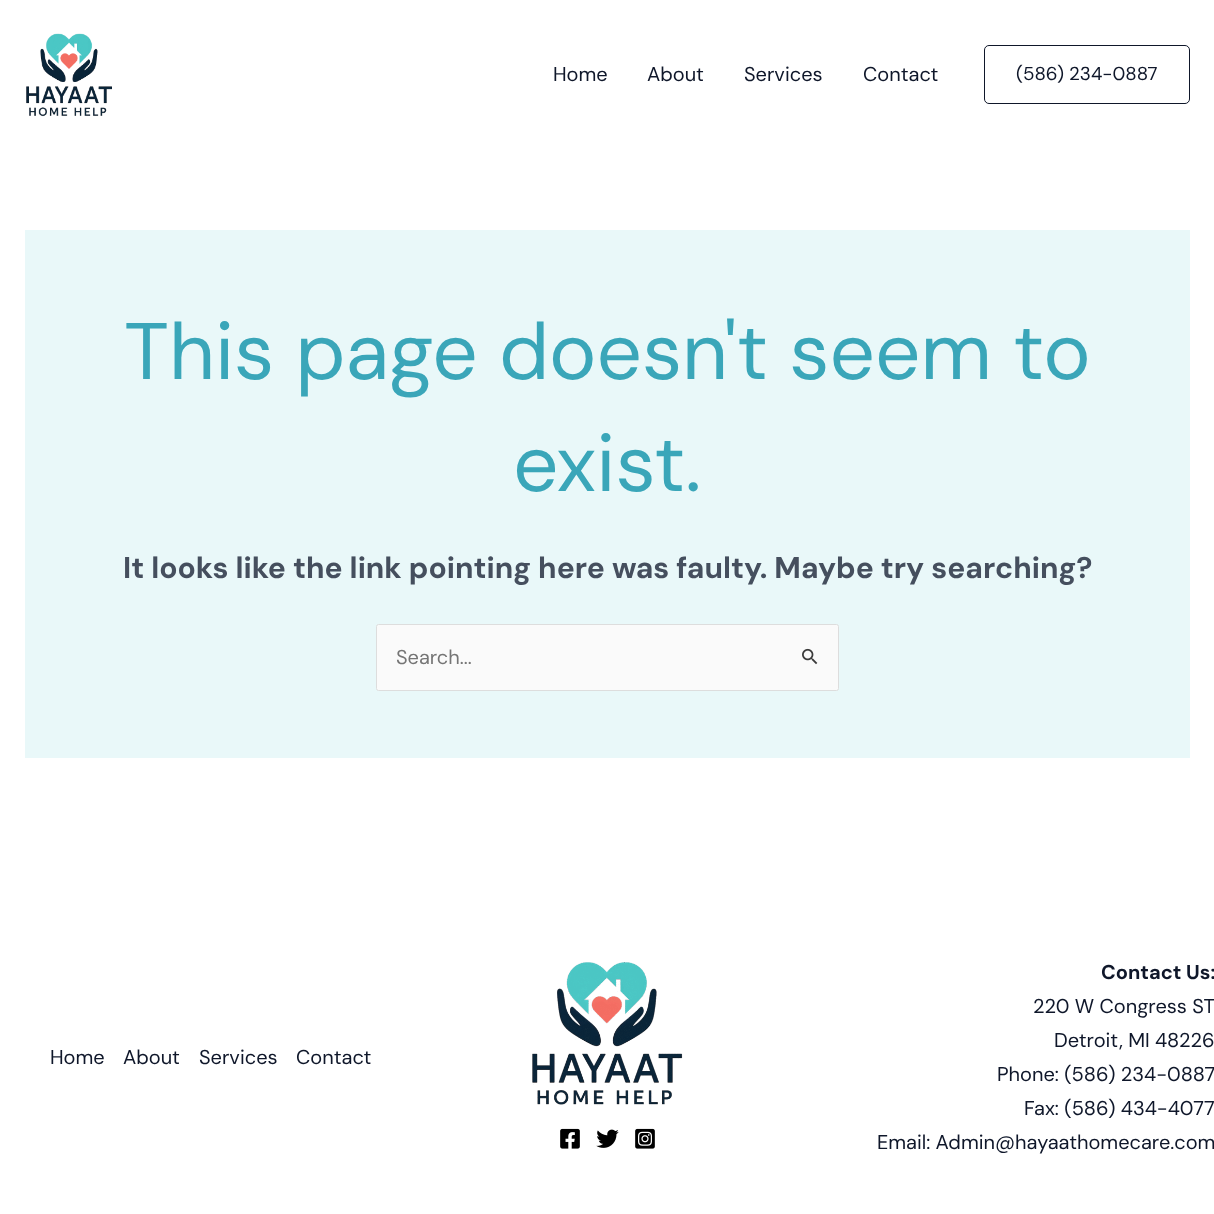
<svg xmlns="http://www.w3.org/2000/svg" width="1214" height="1214">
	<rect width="100%" height="100%" fill="#FFFFFF" />
	<image x="26" y="33" width="86" height="84" href="assets/img1.png" />
	<g font-family="DM Sans" font-size="20" fill="#0F172A">
		<text x="553" y="81">Home</text>
		<text x="647" y="81">About</text>
		<text x="744" y="81">Services</text>
		<text x="863" y="81">Contact</text>
	</g>
	<rect x="984.5" y="45.5" width="205" height="58" rx="4.5" fill="none" stroke="#0F172A" />
	<text x="1016" y="80" font-family="DM Sans" font-size="18.75" fill="#0F172A">(586) 234-0887</text>
	<rect x="25" y="230" width="1165" height="528" fill="#E9F8F9" />
	<g font-family="DM Sans" font-size="80" fill="#3AA6B9">
		<text x="124" y="379">This page doesn't seem to</text>
		<text x="513" y="491">exist.</text>
	</g>
	<text x="123" y="578" font-family="DM Sans" font-size="30" font-weight="700" fill="#454F5E">It looks like the link pointing here was faulty. Maybe try searching?</text>
	<rect x="376.5" y="624.5" width="462" height="66" rx="2" fill="#FAFAFA" stroke="#DDDDDD" />
	<text x="396" y="664" font-family="DM Sans" font-size="20" fill="#757575">Search...</text>
	<image x="802" y="648" width="16" height="17" href="assets/img2.png" />
	<g font-family="DM Sans" font-size="20" fill="#0F172A">
		<text x="50" y="1064">Home</text>
		<text x="123" y="1064">About</text>
		<text x="199" y="1064">Services</text>
		<text x="296" y="1064">Contact</text>
	</g>
	<image x="532" y="962" width="151" height="144" href="assets/img3.png" />
	<image x="560" y="1128" width="20" height="21" href="assets/img4.png" />
	<image x="596" y="1129" width="23" height="19" href="assets/img5.png" />
	<image x="635" y="1128" width="20" height="21" href="assets/img6.png" />
	<text x="1101" y="979" font-family="DM Sans" font-size="20" font-weight="700" fill="#0F172A">Contact Us:</text>
	<g font-family="DM Sans" font-size="20" fill="#0F172A">
		<text x="1033" y="1013">220 W Congress ST</text>
		<text x="1054" y="1047">Detroit, MI 48226</text>
		<text x="997" y="1081">Phone: (586) 234-0887</text>
		<text x="1024" y="1115">Fax: (586) 434-4077</text>
		<text x="877" y="1149">Email: Admin@hayaathomecare.com</text>
	</g>
</svg>
